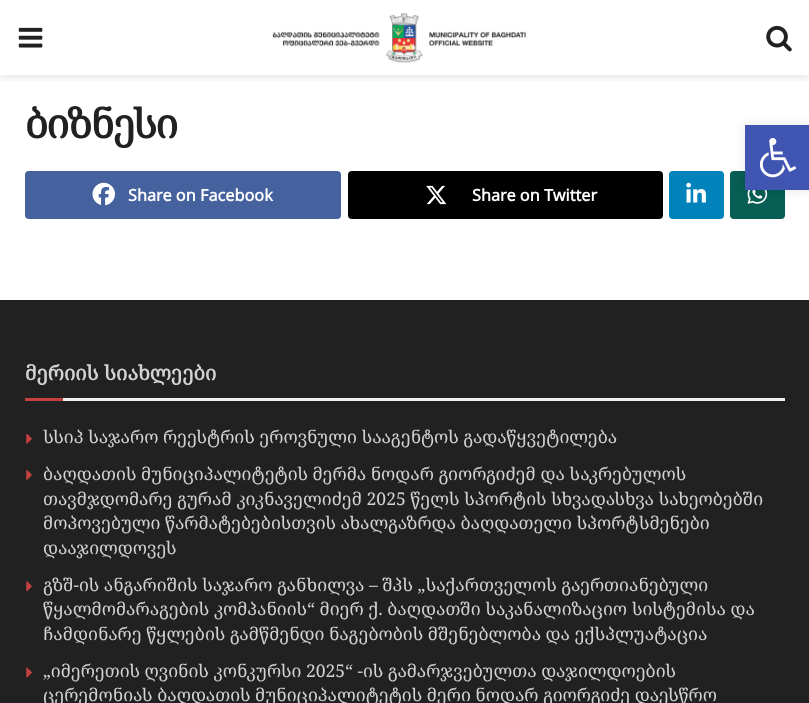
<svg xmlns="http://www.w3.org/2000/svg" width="809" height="703">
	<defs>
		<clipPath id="clip1"><rect x="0" y="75" width="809" height="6" /></clipPath>
	</defs>
	<rect width="100%" height="100%" fill="#FFFFFF" />
	<g clip-path="url(#clip1)">
		<rect x="0" y="3" width="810" height="75" fill="#000000" fill-opacity="0.1" filter="blur(4px)" />
	</g>
	<image x="18" y="27" width="25" height="21" href="assets/img1.png" />
	<image x="272" y="13" width="254" height="50" href="assets/img2.png" />
	<image x="766" y="25" width="26" height="27" href="assets/img3.png" />
	<text x="25" y="138" font-family="Noto Serif Georgian" font-size="40" font-weight="700" letter-spacing="-1.5" fill="#212121">ბიზნესი</text>
	<rect x="25" y="171" width="316" height="48" rx="4" fill="#45629F" />
	<image x="92" y="182" width="23" height="24" href="assets/img4.png" />
	<text x="128" y="201" font-family="Noto Sans Georgian" font-size="16.25" font-weight="700" fill="#FFFFFF">Share on Facebook</text>
	<rect x="348" y="171" width="315" height="48" rx="4" fill="#000000" />
	<image x="426" y="185" width="21" height="20" href="assets/img5.png" />
	<text x="472" y="201" font-family="Noto Sans Georgian" font-size="16.25" font-weight="700" fill="#FFFFFF">Share on Twitter</text>
	<rect x="669" y="171" width="55" height="48" rx="4" fill="#0083BB" />
	<image x="686" y="182" width="20" height="21" href="assets/img6.png" />
	<rect x="730" y="171" width="55" height="48" rx="4" fill="#075E54" />
	<image x="747" y="190" width="21" height="14" href="assets/img7.png" />
	<rect x="0" y="300" width="809" height="403" fill="#212121" />
	<rect x="63" y="398" width="722" height="3" fill="#EEEEEE" />
	<text x="25" y="380" font-family="Noto Serif Georgian" font-size="20" font-weight="700" fill="#D3D3D3">მერიის სიახლეები</text>
	<rect x="25" y="398" width="38" height="3" fill="#C54141" />
	<image x="26" y="433" width="6" height="11" href="assets/img8.png" />
	<text x="43" y="443" font-family="Noto Serif Georgian" font-size="17.5" fill="#D3D3D3">სსიპ საჯარო რეესტრის ეროვნული სააგენტოს გადაწყვეტილება</text>
	<image x="26" y="470" width="6" height="10" href="assets/img9.png" />
	<g font-family="Noto Serif Georgian" font-size="17.5" fill="#D3D3D3">
		<text x="43" y="480">ბაღდათის მუნიციპალიტეტის მერმა ნოდარ გიორგიძემ და საკრებულოს</text>
		<text x="43" y="505">თავმჯდომარე გურამ კიკნაველიძემ 2025 წელს სპორტის სხვადასხვა სახეობებში</text>
		<text x="43" y="529">მოპოვებული წარმატებებისთვის ახალგაზრდა ბაღდათელი სპორტსმენები</text>
		<text x="43" y="554">დააჯილდოვეს</text>
	</g>
	<image x="26" y="581" width="6" height="11" href="assets/img10.png" />
	<g font-family="Noto Serif Georgian" font-size="17.5" fill="#D3D3D3">
		<text x="43" y="591">გზშ-ის ანგარიშის საჯარო განხილვა – შპს „საქართველოს გაერთიანებული</text>
		<text x="43" y="615">წყალმომარაგების კომპანიის“ მიერ ქ. ბაღდათში საკანალიზაციო სისტემისა და</text>
		<text x="43" y="640">ჩამდინარე წყლების გამწმენდი ნაგებობის მშენებლობა და ექსპლუატაცია</text>
	</g>
	<image x="26" y="667" width="6" height="11" href="assets/img11.png" />
	<g font-family="Noto Serif Georgian" font-size="17.5" fill="#D3D3D3">
		<text x="43" y="677">„იმერეთის ღვინის კონკურსი 2025“ -ის გამარჯვებულთა დაჯილდოების</text>
		<text x="43" y="701">ცერემონიას ბაღდათის მუნიციპალიტეტის მერი ნოდარ გიორგიძე დაესწრო</text>
	</g>
	<rect x="745" y="125" width="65" height="65" fill="#000000" fill-opacity="0.1" filter="blur(6px)" />
	<rect x="745" y="125" width="64" height="65" fill="#4054B2" />
	<image x="759" y="138" width="38" height="40" href="assets/img12.png" />
</svg>
